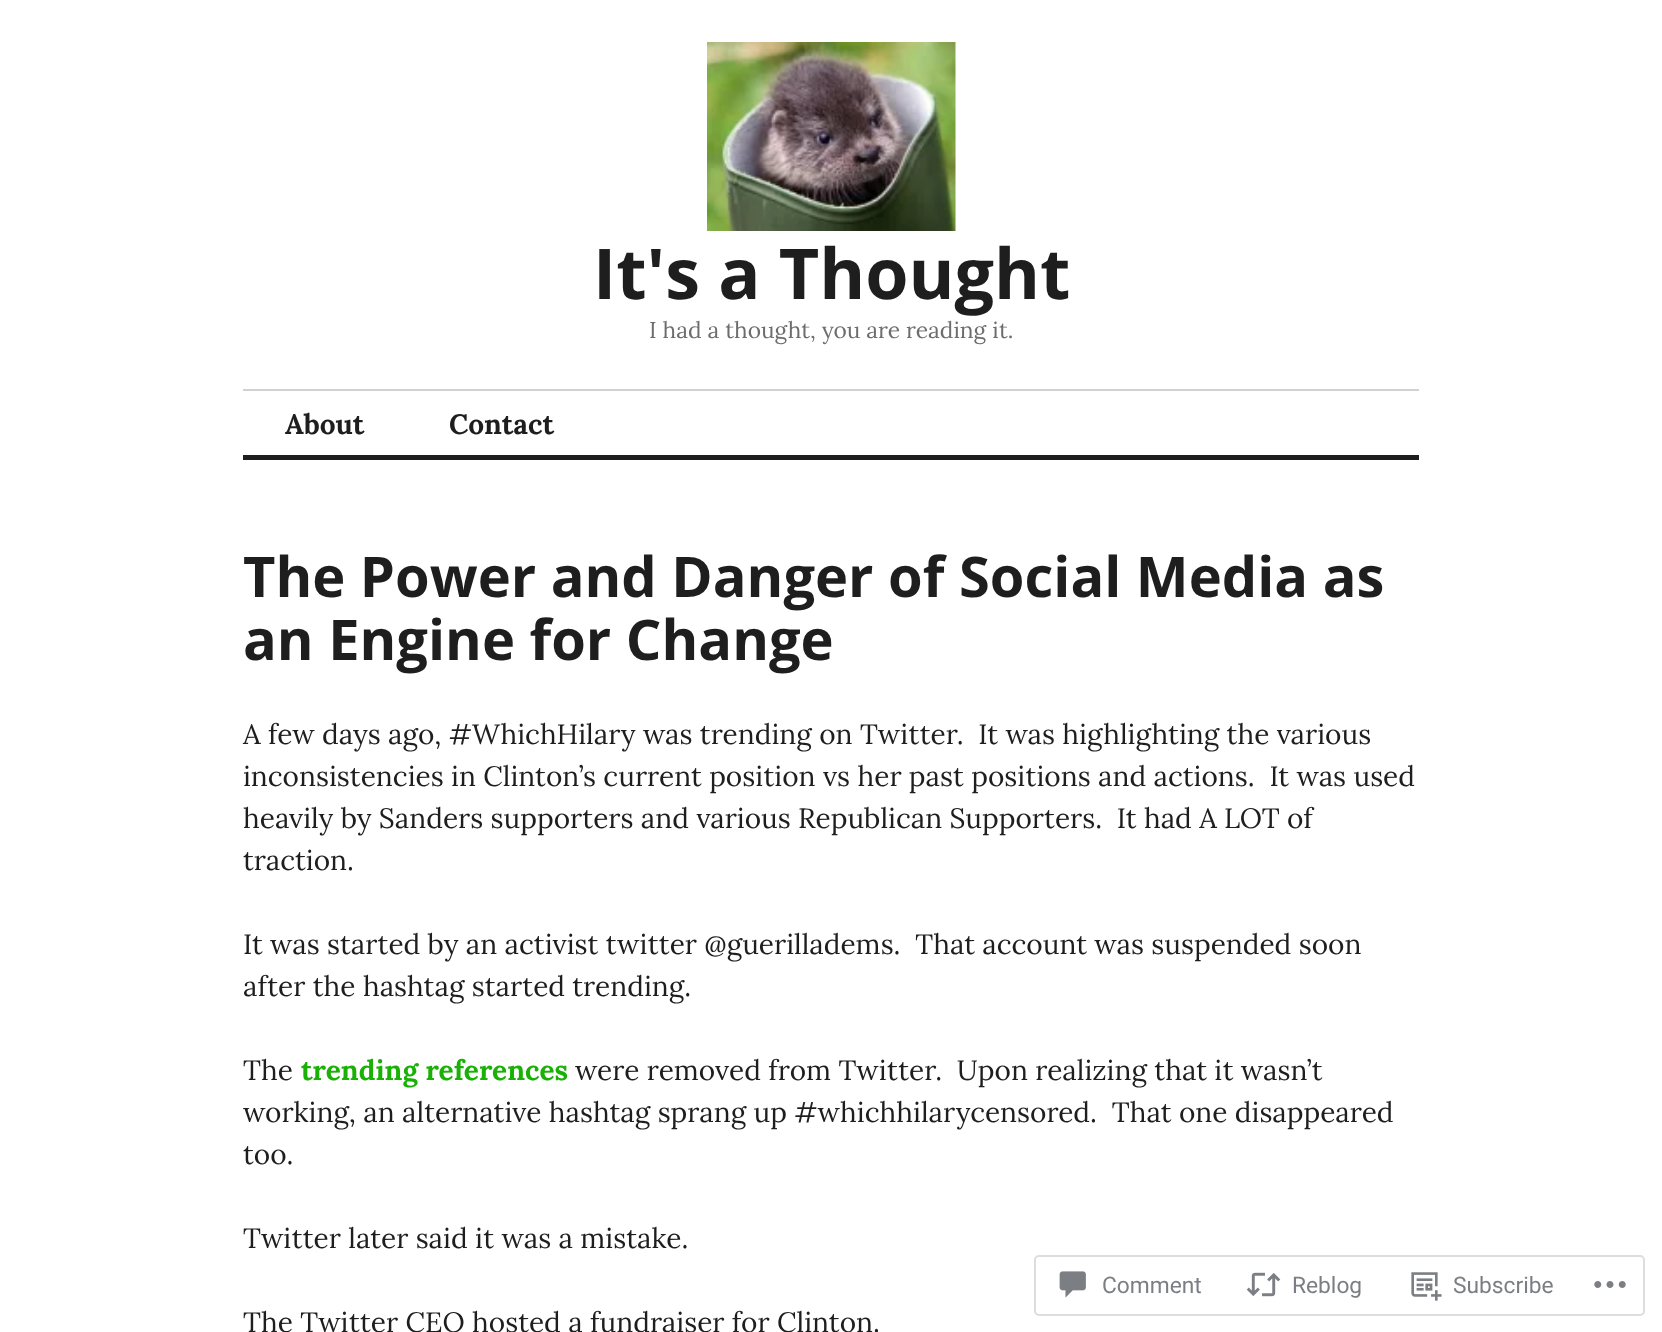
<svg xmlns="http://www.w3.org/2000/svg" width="1662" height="1332">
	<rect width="100%" height="100%" fill="#FFFFFF" />
	<image x="707" y="42" width="249" height="189" href="assets/img1.png" />
	<text x="593" y="299" font-family="Open Sans" font-size="70" font-weight="700" fill="#1E1E1E">It's a Thought</text>
	<text x="649" y="338" font-family="Lora" font-size="22.75" fill="#6D6D6D">I had a thought, you are reading it.</text>
	<rect x="243" y="389" width="1176" height="2" fill="#D1D1D1" />
	<rect x="243" y="455" width="1176" height="5" fill="#1E1E1E" />
	<g font-family="Lora" font-size="28" font-weight="700" fill="#1E1E1E">
		<text x="285" y="434">About</text>
		<text x="449" y="434">Contact</text>
	</g>
	<g font-family="Open Sans" font-size="56" font-weight="700" fill="#1E1E1E">
		<text x="243" y="597">The Power and Danger of Social Media as</text>
		<text x="243" y="660">an Engine for Change</text>
	</g>
	<g font-family="Lora" font-size="28" fill="#1E1E1E">
		<text x="243" y="744" xml:space="preserve">A few days ago, #WhichHilary was trending on Twitter.  It was highlighting the various</text>
		<text x="243" y="786" xml:space="preserve">inconsistencies in Clinton’s current position vs her past positions and actions.  It was used</text>
		<text x="243" y="828" xml:space="preserve">heavily by Sanders supporters and various Republican Supporters.  It had A LOT of</text>
		<text x="243" y="870">traction.</text>
		<text x="243" y="954" xml:space="preserve">It was started by an activist twitter @guerilladems.  That account was suspended soon</text>
		<text x="243" y="996">after the hashtag started trending.</text>
		<text x="243" y="1080">The</text>
	</g>
	<text x="301" y="1080" font-family="Lora" font-size="28" font-weight="700" fill="#1AB106">trending references</text>
	<g font-family="Lora" font-size="28" fill="#1E1E1E">
		<text x="575" y="1080" xml:space="preserve">were removed from Twitter.  Upon realizing that it wasn’t</text>
		<text x="243" y="1122" xml:space="preserve">working, an alternative hashtag sprang up #whichhilarycensored.  That one disappeared</text>
		<text x="243" y="1164">too.</text>
		<text x="243" y="1248">Twitter later said it was a mistake.</text>
		<text x="243" y="1332">The Twitter CEO hosted a fundraiser for Clinton.</text>
	</g>
	<rect x="1035" y="1256" width="609" height="59" rx="4" fill="none" stroke="#DDDDDF" stroke-width="2" />
	<image x="1059" y="1271" width="27" height="27" href="assets/img2.png" />
	<text x="1102" y="1293" font-family="Roboto" font-size="22.75" fill="#7B7F85">Comment</text>
	<image x="1246" y="1272" width="35" height="25" href="assets/img3.png" />
	<text x="1292" y="1293" font-family="Roboto" font-size="22.75" fill="#7B7F85">Reblog</text>
	<image x="1411" y="1272" width="31" height="29" href="assets/img4.png" />
	<text x="1453" y="1293" font-family="Roboto" font-size="22.75" fill="#7B7F85">Subscribe</text>
	<image x="1594" y="1281" width="32" height="7" href="assets/img5.png" />
</svg>
